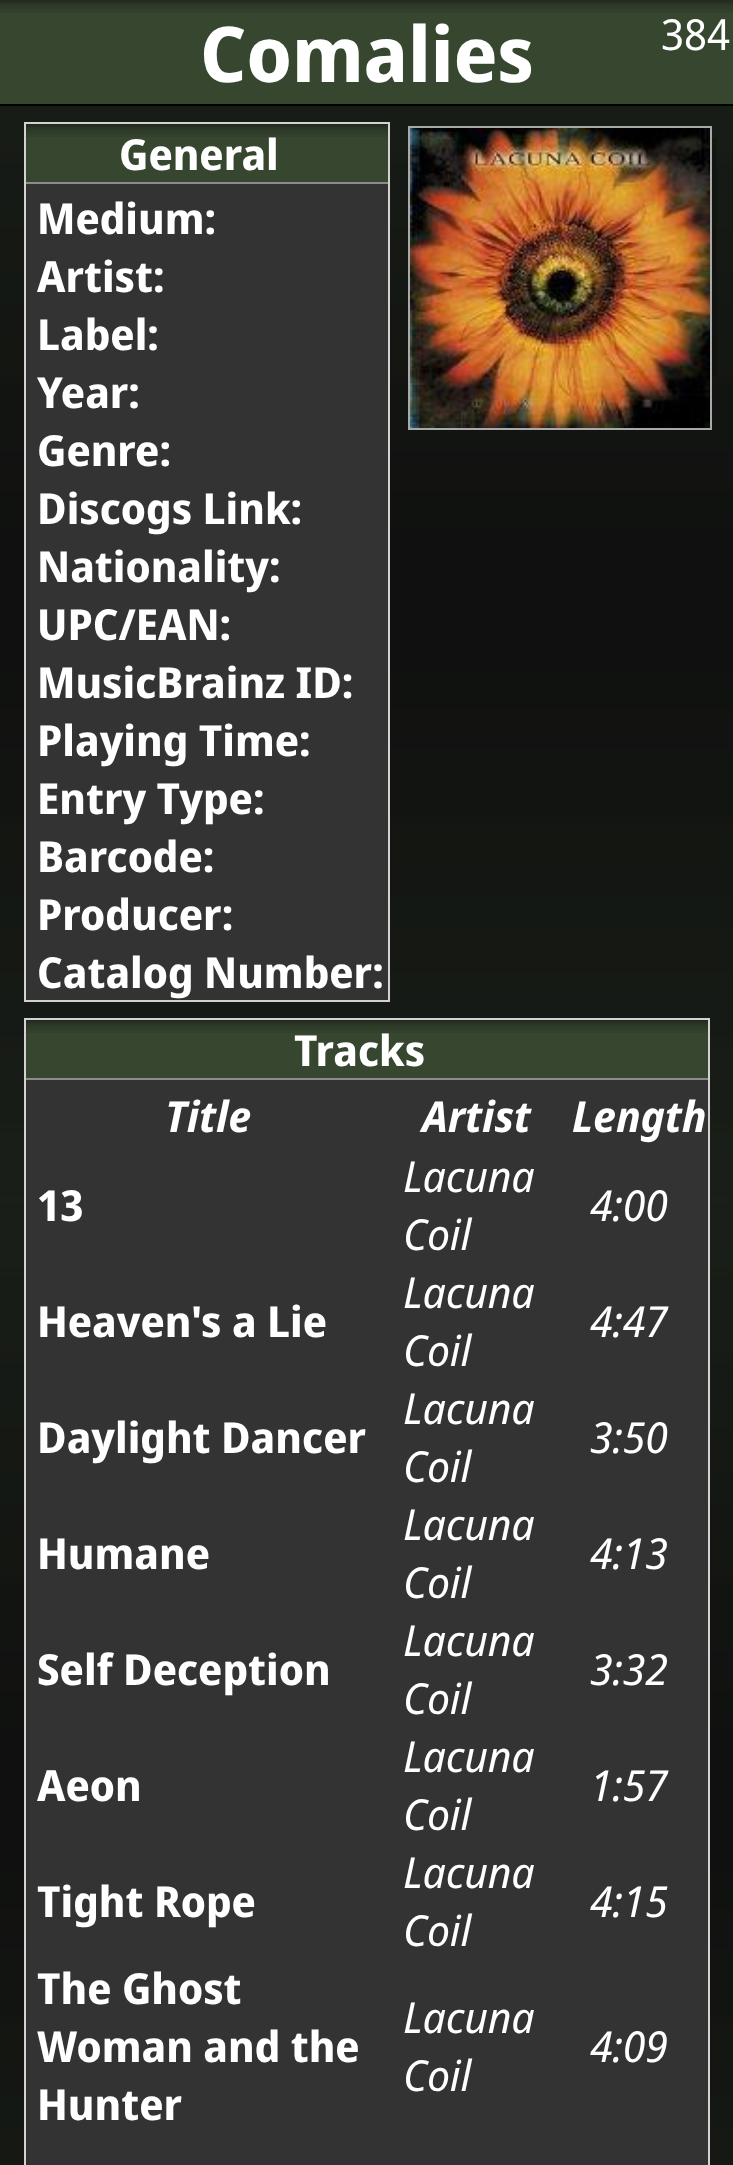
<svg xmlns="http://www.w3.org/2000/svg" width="733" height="2165">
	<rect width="100%" height="100%" fill="#FFFFFF" />
	<image x="0" y="106" width="733" height="2059" href="assets/img1.png" />
	<rect x="0" y="13" width="733" height="91" fill="#36462F" />
	<image x="0" y="0" width="733" height="13" href="assets/img2.png" />
	<rect x="0" y="104" width="733" height="2" fill="#000000" />
	<text x="200" y="82" font-family="Noto Sans Display" font-size="77" font-weight="700" fill="#FFFFFF">Comalies</text>
	<text x="661" y="50" font-family="Noto Sans Display" font-size="42.75" fill="#FFFFFF">384</text>
	<image x="712" y="138" width="5" height="238" href="assets/img3.png" />
	<rect x="409" y="127" width="302" height="302" fill="none" stroke="#A9A9A9" stroke-width="2" />
	<image x="410" y="128" width="300" height="300" href="assets/img4.png" />
	<rect x="26" y="184" width="362" height="816" fill="#333333" />
	<rect x="25" y="123" width="364" height="878" fill="none" stroke="#D4D2CF" stroke-width="2" />
	<rect x="26" y="137" width="362" height="45" fill="#36462F" />
	<image x="26" y="124" width="362" height="13" href="assets/img5.png" />
	<rect x="26" y="182" width="362" height="2" fill="#8D8C8A" />
	<g font-family="Noto Sans Display" font-size="42.75" font-weight="700" fill="#FFFFFF">
		<text x="119" y="170">General</text>
		<text x="37" y="234">Medium:</text>
		<text x="37" y="292">Artist:</text>
		<text x="37" y="350">Label:</text>
		<text x="37" y="408">Year:</text>
		<text x="37" y="466">Genre:</text>
		<text x="37" y="524">Discogs Link:</text>
		<text x="37" y="582">Nationality:</text>
		<text x="37" y="640">UPC/EAN:</text>
		<text x="37" y="698">MusicBrainz ID:</text>
		<text x="37" y="756">Playing Time:</text>
		<text x="37" y="814">Entry Type:</text>
		<text x="37" y="872">Barcode:</text>
		<text x="37" y="930">Producer:</text>
		<text x="37" y="988">Catalog Number:</text>
	</g>
	<rect x="26" y="1080" width="682" height="1085" fill="#333333" />
	<rect x="25" y="1019" width="684" height="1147" fill="none" stroke="#D4D2CF" stroke-width="2" />
	<rect x="26" y="1033" width="682" height="45" fill="#36462F" />
	<image x="26" y="1020" width="682" height="13" href="assets/img6.png" />
	<rect x="26" y="1078" width="682" height="2" fill="#8D8C8A" />
	<text x="294" y="1066" font-family="Noto Sans Display" font-size="42.75" font-weight="700" fill="#FFFFFF">Tracks</text>
	<g font-family="Noto Sans Display" font-size="42.75" font-weight="700" font-style="italic" fill="#FFFFFF">
		<text x="165" y="1132">Title</text>
		<text x="422" y="1132">Artist</text>
		<text x="572" y="1132">Length</text>
	</g>
	<text x="37" y="1221" font-family="Noto Sans Display" font-size="42.75" font-weight="700" fill="#FFFFFF">13</text>
	<g font-family="Noto Sans Display" font-size="42.75" font-style="italic" fill="#FFFFFF">
		<text x="403" y="1192">Lacuna</text>
		<text x="403" y="1250">Coil</text>
		<text x="590" y="1221">4:00</text>
	</g>
	<text x="37" y="1337" font-family="Noto Sans Display" font-size="42.75" font-weight="700" fill="#FFFFFF">Heaven's a Lie</text>
	<g font-family="Noto Sans Display" font-size="42.75" font-style="italic" fill="#FFFFFF">
		<text x="403" y="1308">Lacuna</text>
		<text x="403" y="1366">Coil</text>
		<text x="590" y="1337">4:47</text>
	</g>
	<text x="37" y="1453" font-family="Noto Sans Display" font-size="42.75" font-weight="700" fill="#FFFFFF">Daylight Dancer</text>
	<g font-family="Noto Sans Display" font-size="42.75" font-style="italic" fill="#FFFFFF">
		<text x="403" y="1424">Lacuna</text>
		<text x="403" y="1482">Coil</text>
		<text x="590" y="1453">3:50</text>
	</g>
	<text x="37" y="1569" font-family="Noto Sans Display" font-size="42.75" font-weight="700" fill="#FFFFFF">Humane</text>
	<g font-family="Noto Sans Display" font-size="42.75" font-style="italic" fill="#FFFFFF">
		<text x="403" y="1540">Lacuna</text>
		<text x="403" y="1598">Coil</text>
		<text x="590" y="1569">4:13</text>
	</g>
	<text x="37" y="1685" font-family="Noto Sans Display" font-size="42.75" font-weight="700" fill="#FFFFFF">Self Deception</text>
	<g font-family="Noto Sans Display" font-size="42.75" font-style="italic" fill="#FFFFFF">
		<text x="403" y="1656">Lacuna</text>
		<text x="403" y="1714">Coil</text>
		<text x="590" y="1685">3:32</text>
	</g>
	<text x="37" y="1801" font-family="Noto Sans Display" font-size="42.75" font-weight="700" fill="#FFFFFF">Aeon</text>
	<g font-family="Noto Sans Display" font-size="42.75" font-style="italic" fill="#FFFFFF">
		<text x="403" y="1772">Lacuna</text>
		<text x="403" y="1830">Coil</text>
		<text x="590" y="1801">1:57</text>
	</g>
	<text x="37" y="1917" font-family="Noto Sans Display" font-size="42.75" font-weight="700" fill="#FFFFFF">Tight Rope</text>
	<g font-family="Noto Sans Display" font-size="42.75" font-style="italic" fill="#FFFFFF">
		<text x="403" y="1888">Lacuna</text>
		<text x="403" y="1946">Coil</text>
		<text x="590" y="1917">4:15</text>
	</g>
	<g font-family="Noto Sans Display" font-size="42.75" font-weight="700" fill="#FFFFFF">
		<text x="37" y="2004">The Ghost</text>
		<text x="37" y="2062">Woman and the</text>
		<text x="37" y="2120">Hunter</text>
	</g>
	<g font-family="Noto Sans Display" font-size="42.75" font-style="italic" fill="#FFFFFF">
		<text x="403" y="2033">Lacuna</text>
		<text x="403" y="2091">Coil</text>
		<text x="590" y="2062">4:09</text>
	</g>
</svg>
